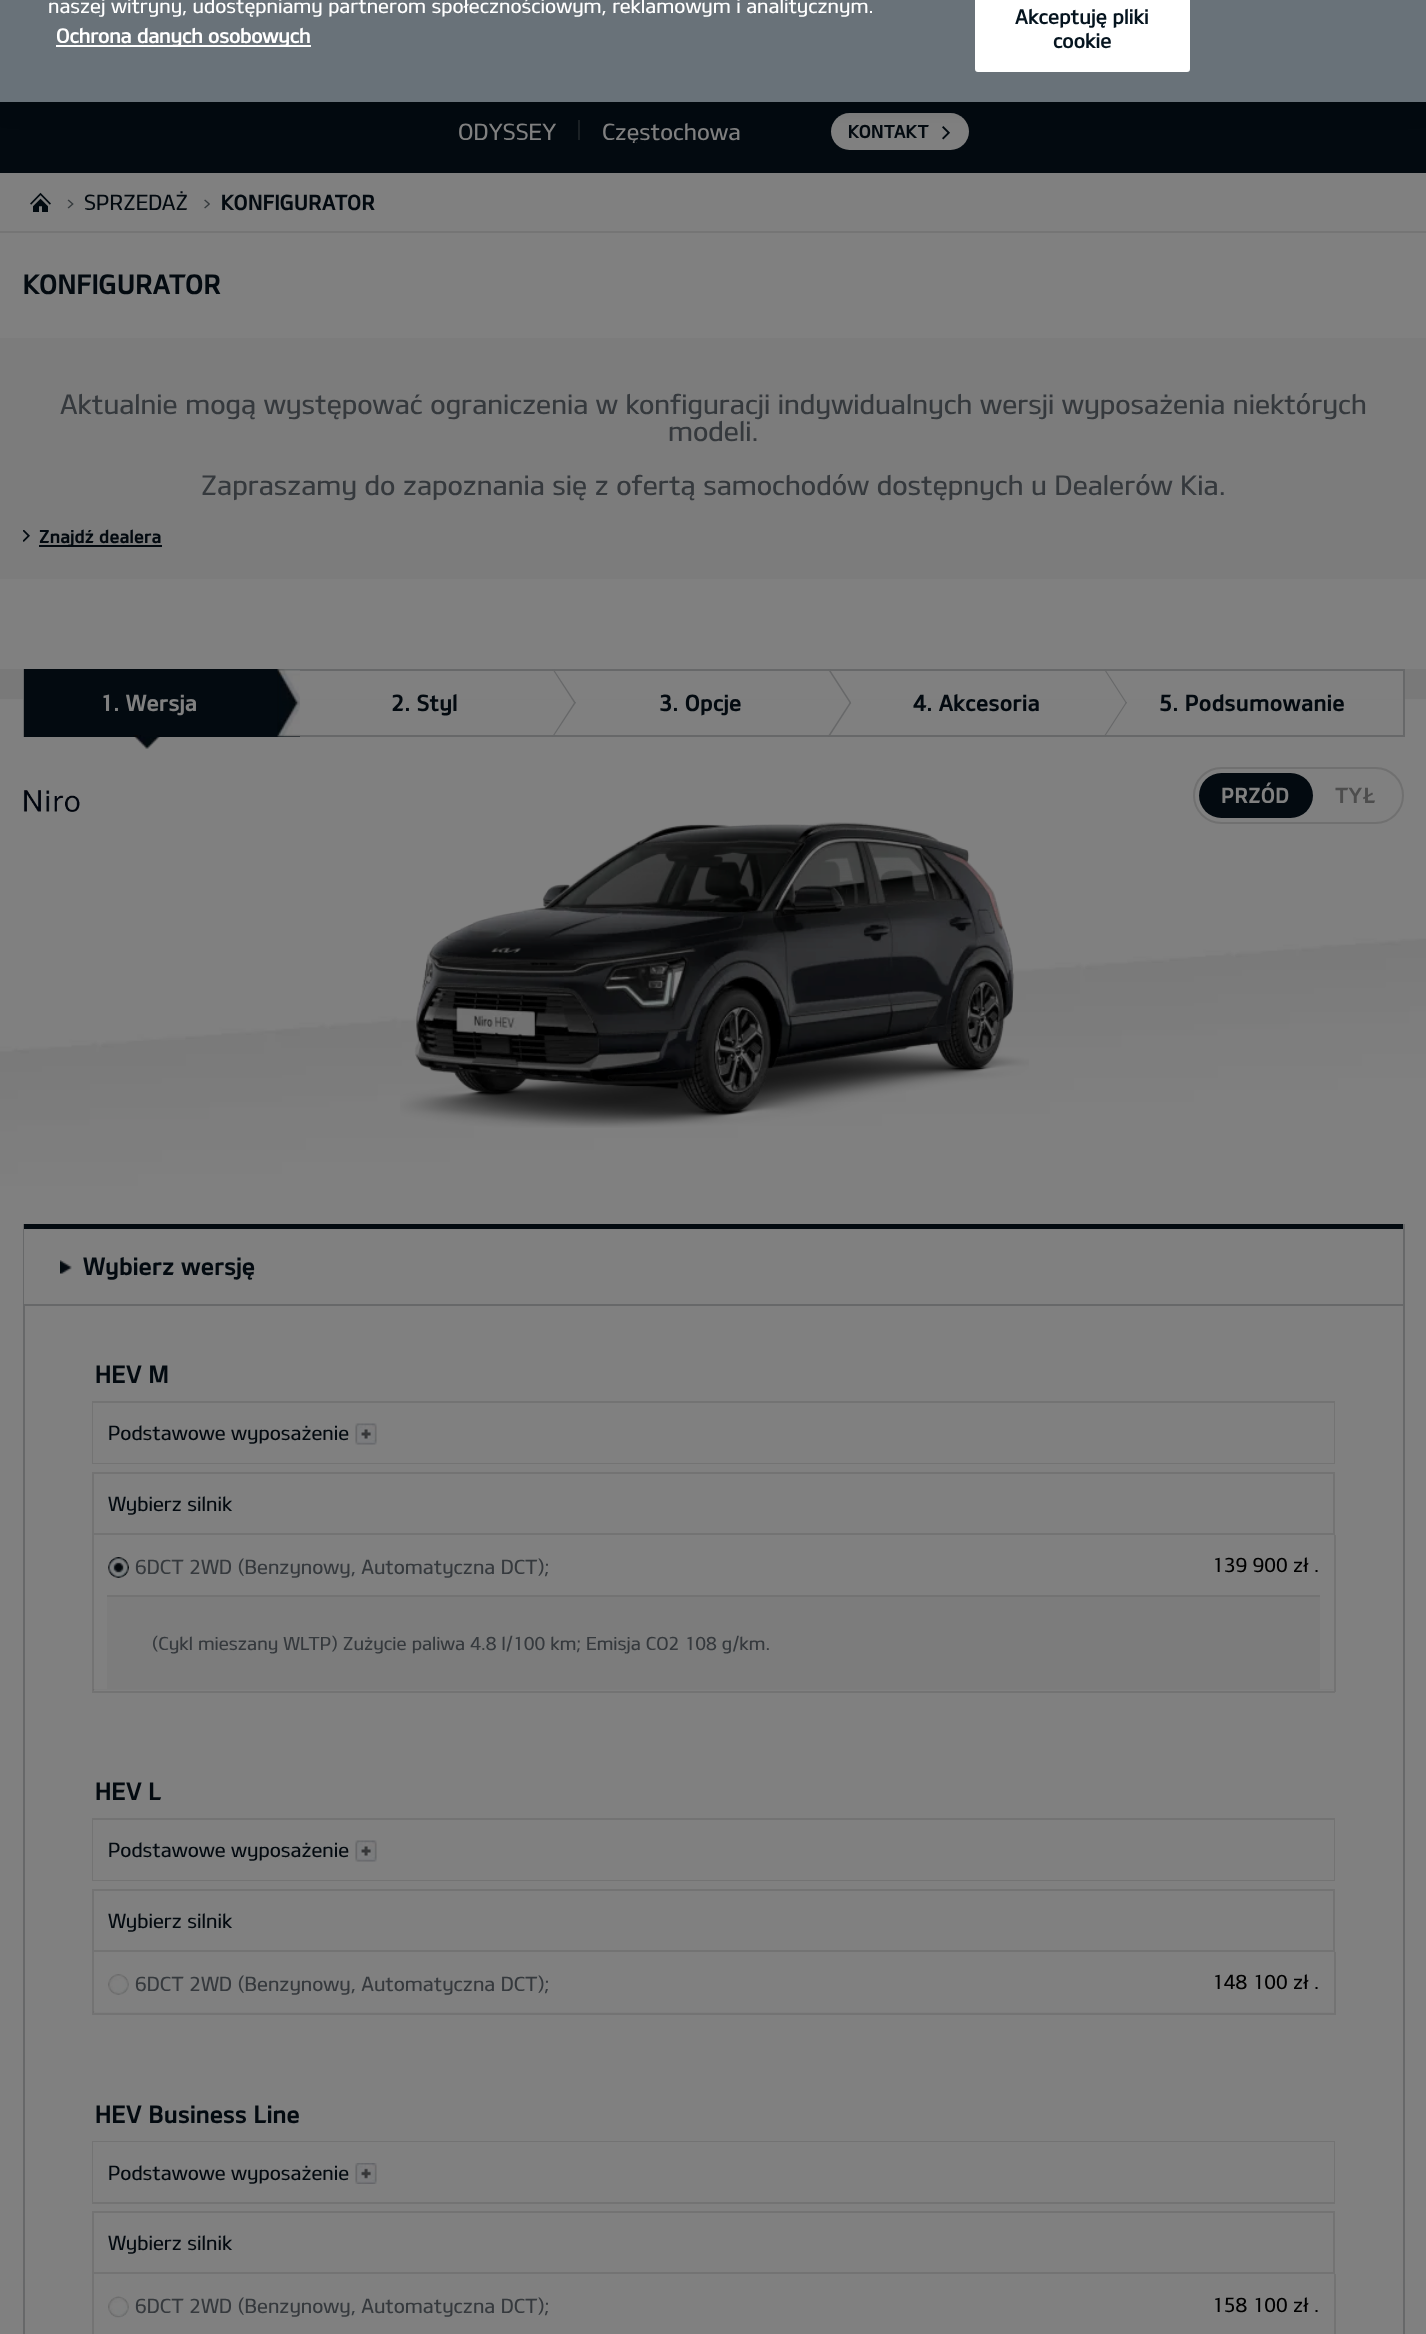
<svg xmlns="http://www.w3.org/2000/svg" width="1426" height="2334">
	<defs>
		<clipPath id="clip1"><rect x="602" y="120" width="184" height="23" /></clipPath>
	</defs>
	<rect width="100%" height="100%" fill="#808080" />
	<rect x="0" y="102" width="1426" height="71" fill="#030A10" />
	<rect x="578" y="120" width="2" height="20" fill="#1B2125" />
	<rect x="831" y="113" width="138" height="37" rx="18.5" fill="#808080" />
	<image x="942" y="126" width="8" height="14" href="assets/img1.png" />
	<rect x="0" y="-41" width="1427" height="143" fill="#000000" fill-opacity="0.2" filter="blur(13.5px)" />
	<rect x="0" y="0" width="1426" height="102" fill="#697279" />
	<text x="48" y="13" font-family="'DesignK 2'" font-size="19.5" fill="#FFFFFF">naszej witryny, udostępniamy partnerom społecznościowym, reklamowym i analitycznym.</text>
	<rect x="56" y="45" width="255" height="2" fill="#FFFFFF" />
	<text x="56" y="43" font-family="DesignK" font-size="19.5" font-weight="700" fill="#FFFFFF">Ochrona danych osobowych</text>
	<rect x="976" y="-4" width="213" height="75" rx="2" fill="#FFFFFF" stroke="#FFFFFF" stroke-width="2" />
	<g font-family="DesignK" font-size="19.5" font-weight="700" letter-spacing="0.25" fill="#05141F">
		<text x="1015" y="24">Akceptuję pliki</text>
		<text x="1053" y="48">cookie</text>
	</g>
	<text x="458" y="140" font-family="'DesignK 2'" font-size="22.5" fill="#808080">ODYSSEY</text>
	<g clip-path="url(#clip1)">
		<text x="602" y="140" font-family="'DesignK 2'" font-size="22.5" fill="#808080">Częstochowa</text>
	</g>
	<text x="848" y="138" font-family="DesignK" font-size="18" fill="#030A10">KONTAKT</text>
	<rect x="0" y="231" width="1426" height="2" fill="#757575" />
	<image x="30" y="192" width="21" height="20" href="assets/img2.png" />
	<image x="67" y="199" width="7" height="10" href="assets/img3.png" />
	<text x="84" y="210" font-family="'DesignK 2'" font-size="21" fill="#030A10">SPRZEDAŻ</text>
	<image x="204" y="199" width="6" height="10" href="assets/img4.png" />
	<text x="221" y="210" font-family="DesignK" font-size="21" fill="#030A10">KONFIGURATOR</text>
	<text x="23" y="294" font-family="DesignK" font-size="27" fill="#030A10">KONFIGURATOR</text>
	<rect x="0" y="338" width="1426" height="241" fill="#7C7C7C" />
	<g font-family="'DesignK 2'" font-size="27" fill="#35393D">
		<text x="60" y="414">Aktualnie mogą występować ograniczenia w konfiguracji indywidualnych wersji wyposażenia niektórych</text>
		<text x="668" y="441">modeli.</text>
		<text x="201" y="495">Zapraszamy do zapoznania się z ofertą samochodów dostępnych u Dealerów Kia.</text>
	</g>
	<image x="23" y="530" width="7" height="12" href="assets/img5.png" />
	<rect x="39" y="545" width="123" height="2" fill="#030A10" />
	<text x="39" y="543" font-family="DesignK" font-size="18" fill="#030A10">Znajdź dealera</text>
	<rect x="0" y="669" width="1426" height="31" fill="#797979" />
	<image x="0" y="699" width="1426" height="525" href="assets/img6.png" />
	<rect x="300" y="671" width="1103" height="28" fill="#808080" />
	<rect x="1403" y="669" width="2" height="68" fill="#676869" />
	<rect x="23" y="669" width="1" height="68" fill="#676869" />
	<rect x="24" y="669" width="254" height="66" fill="#030A10" />
	<rect x="24" y="735" width="276" height="2" fill="#030A10" />
	<text x="100" y="711" font-family="DesignK" font-size="22.5" fill="#808080">1. Wersja</text>
	<image x="277" y="669" width="23" height="68" href="assets/img7.png" />
	<image x="133" y="735" width="27" height="14" href="assets/img8.png" />
	<rect x="300" y="669" width="551" height="2" fill="#676869" />
	<rect x="300" y="735" width="551" height="2" fill="#676869" />
	<text x="391" y="711" font-family="DesignK" font-size="22.5" fill="#030A10">2. Styl</text>
	<path d="M553.5 669L576 703L574.5 703.5L552.5 669.5Z" fill="#676869" />
	<path d="M552.5 736L574.5 702L576 702.5L553.5 736.5Z" fill="#676869" />
	<text x="659" y="711" font-family="DesignK" font-size="22.5" fill="#030A10">3. Opcje</text>
	<path d="M829.5 669L851.5 703L850 703.5L828 669.5Z" fill="#676869" />
	<path d="M828 736L850 702L851.5 702.5L829.5 736.5Z" fill="#676869" />
	<rect x="851" y="669" width="552" height="2" fill="#676869" />
	<rect x="851" y="735" width="552" height="2" fill="#676869" />
	<rect x="851" y="702" width="1" height="1" fill="#808080" />
	<text x="913" y="711" font-family="DesignK" font-size="22.5" fill="#030A10">4. Akcesoria</text>
	<path d="M1105 669L1127 703L1126 703.5L1104 669.5Z" fill="#676869" />
	<path d="M1104 736L1126 702L1127 702.5L1105 736.5Z" fill="#676869" />
	<text x="1159" y="711" font-family="DesignK" font-size="22.5" fill="#030A10">5. Podsumowanie</text>
	<image x="23" y="790" width="57" height="22" href="assets/img9.png" />
	<rect x="1194" y="768" width="209" height="55" rx="27.5" fill="none" stroke="#707070" stroke-width="2" />
	<rect x="1199" y="773" width="114" height="45" rx="22.5" fill="#030A10" />
	<text x="1221" y="803" font-family="DesignK" font-size="21" fill="#808080">PRZÓD</text>
	<text x="1335" y="803" font-family="DesignK" font-size="21" fill="#4D4D4D">TYŁ</text>
	<image x="400" y="824" width="629" height="304" href="assets/img11.png" />
	<image x="416" y="824" width="597" height="258" href="assets/img12.png" />
	<image x="638" y="822" width="301" height="24" href="assets/img10.png" />
	<image x="415" y="947" width="599" height="135" href="assets/img13.png" />
	<image x="420" y="954" width="267" height="55" href="assets/img14.png" />
	<rect x="1403" y="1224" width="2" height="1110" fill="#676869" />
	<rect x="23" y="1224" width="2" height="1110" fill="#676869" />
	<rect x="24" y="1229" width="1" height="75" fill="#808080" />
	<rect x="24" y="1224" width="1379" height="5" fill="#030A10" />
	<rect x="24" y="1304" width="1379" height="2" fill="#676869" />
	<image x="60" y="1260" width="12" height="14" href="assets/img15.png" />
	<g font-family="DesignK" font-size="24" fill="#030A10">
		<text x="83" y="1275">Wybierz wersję</text>
		<text x="95" y="1383">HEV M</text>
	</g>
	<rect x="93" y="1402" width="1241" height="61" fill="none" stroke="#737373" stroke-width="2" />
	<rect x="93" y="1403" width="1241" height="60" fill="#808080" />
	<text x="108" y="1440" font-family="'DesignK 2'" font-size="19.5" fill="#030A10">Podstawowe wyposażenie</text>
	<image x="355" y="1423" width="22" height="22" href="assets/img16.png" />
	<rect x="93" y="1473" width="1241" height="61" fill="none" stroke="#737373" stroke-width="2" />
	<text x="108" y="1511" font-family="'DesignK 2'" font-size="19.5" fill="#030A10">Wybierz silnik</text>
	<rect x="1334" y="1535" width="2" height="157" fill="#737373" />
	<rect x="92" y="1691" width="1243" height="2" fill="#737373" />
	<rect x="92" y="1535" width="2" height="157" fill="#737373" />
	<image x="108" y="1557" width="21" height="21" href="assets/img17.png" />
	<image x="108" y="1557" width="21" height="21" href="assets/img18.png" />
	<text x="135" y="1574" font-family="'DesignK 2'" font-size="19.5" fill="#35393D">6DCT 2WD (Benzynowy, Automatyczna DCT);</text>
	<text x="1212" y="1572" font-family="'DesignK 2'" font-size="19.5" fill="#000000">139 900 zł .</text>
	<rect x="107" y="1597" width="1213" height="92" fill="#7C7C7C" />
	<rect x="107" y="1595" width="1213" height="2" fill="#737373" />
	<text x="152" y="1650" font-family="'DesignK 2'" font-size="18" fill="#35393D">(Cykl mieszany WLTP) Zużycie paliwa 4.8 l/100 km; Emisja CO2 108 g/km.</text>
	<path d="M1334 1690H93L94 1689H1332Z" fill="#737373" fill-opacity="0.24" />
	<path d="M93 1690.5V1689H94.5Z" fill="#6A6A6A" />
	<text x="95" y="1800" font-family="DesignK" font-size="24" fill="#030A10">HEV L</text>
	<rect x="93" y="1819" width="1241" height="61" fill="none" stroke="#737373" stroke-width="2" />
	<rect x="93" y="1820" width="1241" height="60" fill="#808080" />
	<text x="108" y="1857" font-family="'DesignK 2'" font-size="19.5" fill="#030A10">Podstawowe wyposażenie</text>
	<image x="355" y="1840" width="22" height="22" href="assets/img16.png" />
	<rect x="93" y="1890" width="1241" height="61" fill="none" stroke="#737373" stroke-width="2" />
	<text x="108" y="1928" font-family="'DesignK 2'" font-size="19.5" fill="#030A10">Wybierz silnik</text>
	<rect x="1334" y="1952" width="2" height="63" fill="#737373" />
	<rect x="92" y="2013" width="1243" height="2" fill="#737373" />
	<rect x="92" y="1952" width="2" height="63" fill="#737373" />
	<image x="108" y="1974" width="21" height="21" href="assets/img17.png" />
	<text x="135" y="1991" font-family="'DesignK 2'" font-size="19.5" fill="#35393D">6DCT 2WD (Benzynowy, Automatyczna DCT);</text>
	<text x="1212" y="1989" font-family="'DesignK 2'" font-size="19.5" fill="#000000">148 100 zł .</text>
	<path d="M1334 2013H93L94 2012H1332Z" fill="#737373" fill-opacity="0.24" />
	<path d="M93 2013V2011.5H94.5Z" fill="#6A6A6A" />
	<text x="95" y="2123" font-family="DesignK" font-size="24" fill="#030A10">HEV Business Line</text>
	<rect x="93" y="2142" width="1241" height="61" fill="none" stroke="#737373" stroke-width="2" />
	<rect x="93" y="2142" width="1241" height="60" fill="#808080" />
	<text x="108" y="2180" font-family="'DesignK 2'" font-size="19.5" fill="#030A10">Podstawowe wyposażenie</text>
	<image x="355" y="2163" width="22" height="21" href="assets/img19.png" />
	<rect x="93" y="2212" width="1241" height="61" fill="none" stroke="#737373" stroke-width="2" />
	<text x="108" y="2250" font-family="'DesignK 2'" font-size="19.5" fill="#030A10">Wybierz silnik</text>
	<rect x="1334" y="2274" width="2" height="60" fill="#737373" />
	<rect x="92" y="2274" width="2" height="60" fill="#737373" />
	<image x="108" y="2296" width="21" height="22" href="assets/img20.png" />
	<text x="135" y="2313" font-family="'DesignK 2'" font-size="19.5" fill="#35393D">6DCT 2WD (Benzynowy, Automatyczna DCT);</text>
	<text x="1212" y="2312" font-family="'DesignK 2'" font-size="19.5" fill="#000000">158 100 zł .</text>
</svg>
